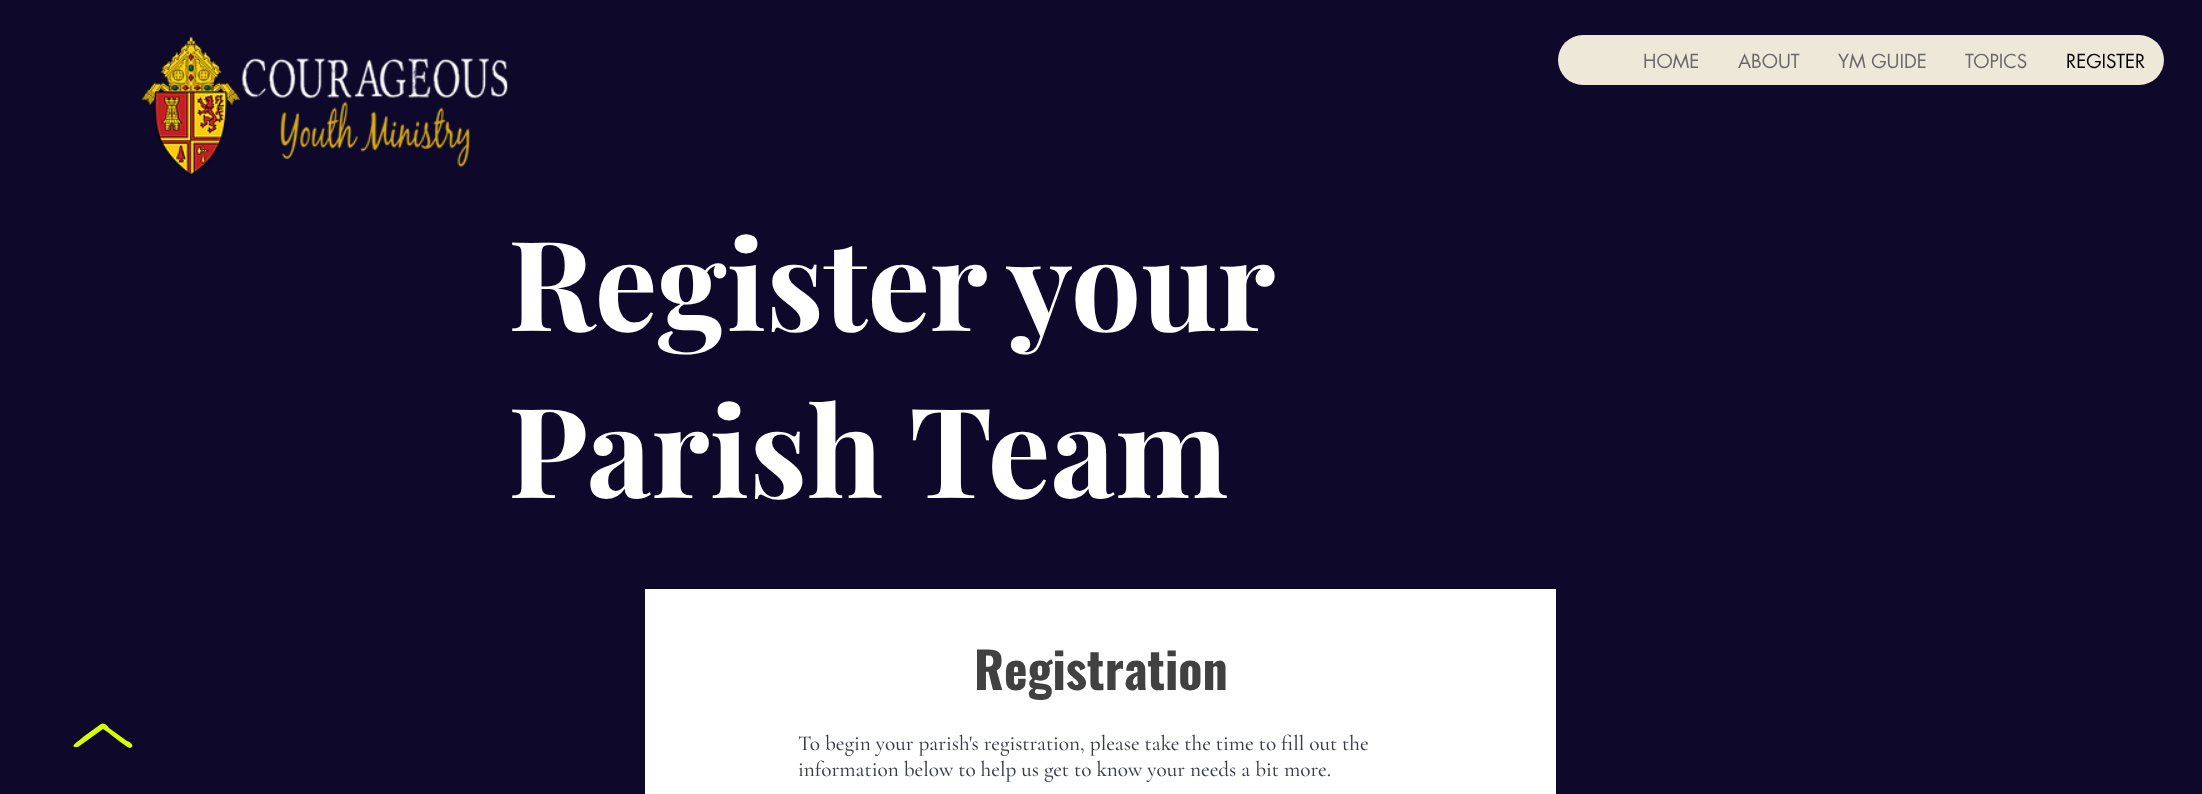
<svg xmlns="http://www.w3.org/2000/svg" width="2202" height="794">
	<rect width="100%" height="100%" fill="#0E092B" />
	<rect x="1558" y="35" width="606" height="50" rx="25" fill="#EEE8D8" />
	<g font-family="futura" font-size="18.75" fill="#696969">
		<text x="1643" y="68">HOME</text>
		<text x="1738" y="68">ABOUT</text>
		<text x="1838" y="68">YM GUIDE</text>
		<text x="1965" y="68">TOPICS</text>
	</g>
	<text x="2066" y="68" font-family="futura" font-size="18.75" fill="#000000">REGISTER</text>
	<path d="M130 748C127 748 107 731 103 729L78 747H75C70 746 78 742 83 737L101 724C104 722 108 726 109 728L127 741C128 741 134 744 132 747Z" fill="#D6FF00" />
	<image x="140" y="36" width="368" height="139" href="assets/img1.png" />
	<g font-family="Playfair Display" font-size="125" font-weight="700" fill="#FFFFFF">
		<text x="508" y="331" word-spacing="-3">Register your</text>
		<text x="508" y="498">Parish Team</text>
	</g>
	<rect x="645" y="589" width="911" height="205" fill="#FFFFFF" />
	<text x="974" y="690" font-family="Oswald" font-size="50" font-weight="700" fill="#414141">Registration</text>
	<g font-family="Cormorant Garamond" font-size="21.25" font-weight="500" fill="#373B4D">
		<text x="798" y="750">To begin your parish's registration, please take the time to fill out the</text>
		<text x="798" y="776">information below to help us get to know your needs a bit more.</text>
	</g>
</svg>
